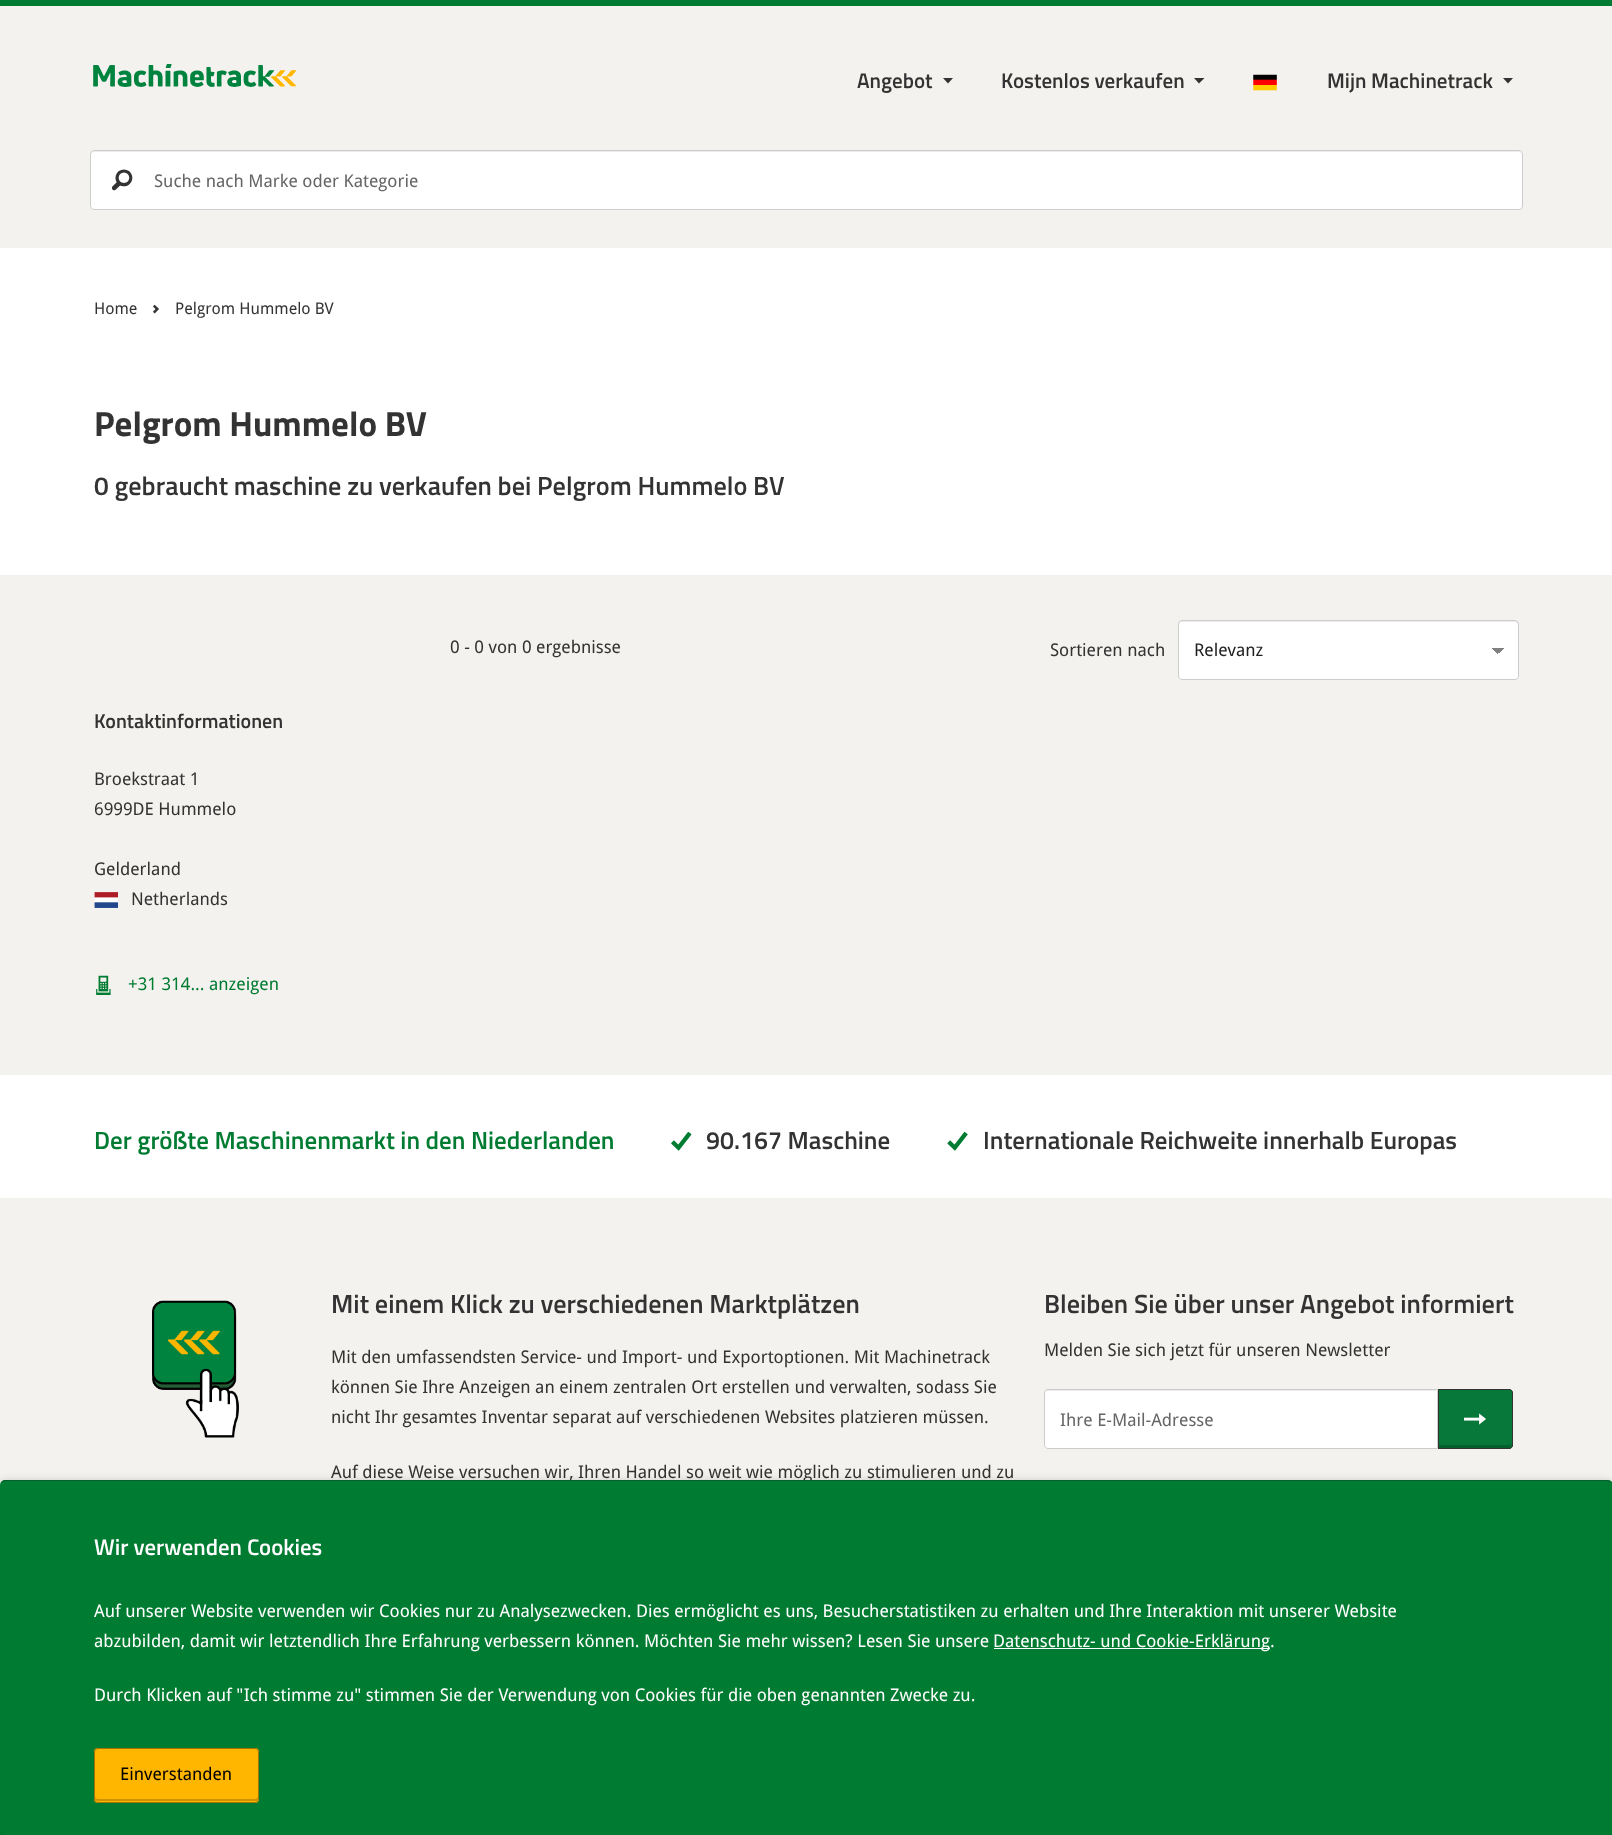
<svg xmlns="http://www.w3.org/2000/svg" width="1612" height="1835">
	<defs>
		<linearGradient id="g1" gradientUnits="userSpaceOnUse" x1="1498" y1="648" x2="1504" y2="654"><stop offset="0.5" stop-color="#808080" /><stop offset="0.5" stop-color="#FFFFFF" /></linearGradient>
		<linearGradient id="g2" gradientUnits="userSpaceOnUse" x1="1491" y1="654" x2="1498" y2="648"><stop offset="0.5" stop-color="#FFFFFF" /><stop offset="0.5" stop-color="#808080" /></linearGradient>
	</defs>
	<rect width="100%" height="100%" fill="#007B32" />
	<rect x="0" y="6" width="1612" height="242" fill="#F4F2EE" />
	<image x="93" y="64" width="203" height="23" href="assets/img1.png" />
	<text x="857" y="88" font-family="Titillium" font-size="21" font-weight="600" fill="#333333">Angebot</text>
	<path d="M943 78H953L948 83.5Z" fill="#333333" />
	<text x="1001" y="88" font-family="Titillium" font-size="21" font-weight="600" fill="#333333">Kostenlos verkaufen</text>
	<path d="M1194 78H1204.5L1199 83.5Z" fill="#333333" />
	<image x="1253" y="74" width="24" height="17" href="assets/img2.png" />
	<text x="1327" y="88" font-family="Titillium" font-size="21" font-weight="600" fill="#333333">Mijn Machinetrack</text>
	<path d="M1503 78H1513L1508 83.5Z" fill="#333333" />
	<rect x="90" y="150" width="1433" height="60" rx="4" fill="#FFFFFF" />
	<path d="M94 152H1519C1520 152 1521 154 1521 155V154C1521 152 1520 151 1518 151H94C92 151 91 152 91 154V155C91 154 92 152 94 152Z" fill="#ECECEC" />
	<rect x="90.5" y="150.5" width="1432" height="59" rx="3.5" fill="none" stroke="#CCCCCC" />
	<text x="109" y="193" font-family="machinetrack" font-size="26.25" fill="#333333">p</text>
	<text x="154" y="187" font-family="Droid Sans" font-size="17.5" fill="#666666">Suche nach Marke oder Kategorie</text>
	<rect x="0" y="248" width="1612" height="950" fill="#FFFFFF" />
	<text x="94" y="314" font-family="Droid Sans" font-size="16" fill="#333333">Home</text>
	<text x="149" y="316" font-family="machinetrack" font-size="14" fill="#333333">&gt;</text>
	<text x="175" y="314" font-family="Droid Sans" font-size="16" fill="#333333">Pelgrom Hummelo BV</text>
	<text x="94" y="436" font-family="Titillium" font-size="35" font-weight="700" fill="#333333">Pelgrom Hummelo BV</text>
	<text x="94" y="495" font-family="Titillium" font-size="26.25" font-weight="600" fill="#333333">0 gebraucht maschine zu verkaufen bei Pelgrom Hummelo BV</text>
	<rect x="0" y="575" width="1612" height="500" fill="#F4F2EE" />
	<g font-family="Droid Sans" font-size="17.5" fill="#333333">
		<text x="450" y="653">0 - 0 von 0 ergebnisse</text>
		<text x="1050" y="656">Sortieren nach</text>
	</g>
	<rect x="1178" y="620" width="341" height="60" rx="4" fill="#FFFFFF" />
	<rect x="1498" y="648" width="6" height="5" fill="url(#g1)" />
	<rect x="1491" y="648" width="7" height="6" fill="url(#g2)" />
	<path d="M1181 622H1515C1516 622 1518 624 1518 625C1518 623 1518 621 1516 621H1181L1179 622V625C1179 624 1180 622 1181 622Z" fill="#ECECEC" />
	<rect x="1178.5" y="620.5" width="340" height="59" rx="3.5" fill="none" stroke="#CCCCCC" />
	<text x="1194" y="656" font-family="Droid Sans" font-size="17.5" fill="#222222">Relevanz</text>
	<text x="94" y="728" font-family="Titillium" font-size="20" font-weight="600" fill="#333333">Kontaktinformationen</text>
	<g font-family="Droid Sans" font-size="17.5" fill="#333333">
		<text x="94" y="785">Broekstraat 1</text>
		<text x="94" y="815">6999DE Hummelo</text>
		<text x="94" y="875">Gelderland</text>
	</g>
	<image x="94" y="892" width="24" height="16" href="assets/img3.png" />
	<text x="131" y="905" font-family="Droid Sans" font-size="17.5" fill="#333333">Netherlands</text>
	<image x="96" y="975" width="15" height="20" href="assets/img4.png" />
	<text x="128" y="990" font-family="Droid Sans" font-size="17.5" fill="#007B32">+31 314... anzeigen</text>
	<text x="94" y="1149" font-family="Titillium" font-size="25" font-weight="600" fill="#007B32">Der größte Maschinenmarkt in den Niederlanden</text>
	<image x="671" y="1131" width="21" height="20" href="assets/img5.png" />
	<text x="706" y="1149" font-family="Titillium" font-size="25" font-weight="600" fill="#333333">90.167 Maschine</text>
	<image x="947" y="1131" width="21" height="20" href="assets/img6.png" />
	<text x="983" y="1149" font-family="Titillium" font-size="25" font-weight="600" fill="#333333">Internationale Reichweite innerhalb Europas</text>
	<rect x="0" y="1198" width="1612" height="287" fill="#F4F2EE" />
	<image x="152" y="1300" width="87" height="138" href="assets/img7.png" />
	<text x="331" y="1313" font-family="Titillium" font-size="26.25" font-weight="600" fill="#333333">Mit einem Klick zu verschiedenen Marktplätzen</text>
	<g font-family="Droid Sans" font-size="17.5" fill="#333333">
		<text x="331" y="1363">Mit den umfassendsten Service- und Import- und Exportoptionen. Mit Machinetrack</text>
		<text x="331" y="1393">können Sie Ihre Anzeigen an einem zentralen Ort erstellen und verwalten, sodass Sie</text>
		<text x="331" y="1423">nicht Ihr gesamtes Inventar separat auf verschiedenen Websites platzieren müssen.</text>
		<text x="331" y="1478">Auf diese Weise versuchen wir, Ihren Handel so weit wie möglich zu stimulieren und zu</text>
	</g>
	<text x="1044" y="1313" font-family="Titillium" font-size="26.25" font-weight="600" fill="#333333">Bleiben Sie über unser Angebot informiert</text>
	<text x="1044" y="1356" font-family="Droid Sans" font-size="17.5" fill="#333333">Melden Sie sich jetzt für unseren Newsletter</text>
	<path d="M1048 1389H1438V1449H1048C1046 1449 1044 1447 1044 1445V1393C1044 1391 1046 1389 1048 1389Z" fill="#FFFFFF" />
	<path d="M1048 1391H1436V1390H1048C1045 1390 1045 1392 1045 1394C1045 1392 1046 1391 1048 1391Z" fill="#ECECEC" />
	<path d="M1048 1389.5H1437.5V1448.5H1048C1046 1448.5 1044.5 1447 1044.5 1445V1393C1044.5 1391 1046 1389.5 1048 1389.5Z" fill="none" stroke="#CCCCCC" />
	<text x="1060" y="1426" font-family="Droid Sans" font-size="17.5" fill="#666666">Ihre E-Mail-Adresse</text>
	<path d="M1438 1389H1509C1511 1389 1513 1391 1513 1393V1445C1513 1447 1511 1449 1509 1449H1438Z" fill="#07783A" />
	<path d="M1439 1445V1448H1508C1510 1448 1511 1447 1511 1446V1442C1511 1444 1510 1445 1509 1445Z" fill="#06602E" />
	<path d="M1438.5 1389.5H1509C1511 1389.5 1512.5 1391 1512.5 1393V1445C1512.5 1447 1511 1448.5 1509 1448.5H1438.5Z" fill="none" stroke="#333333" />
	<text x="1464" y="1430" font-family="machinetrack" font-size="22" fill="#FFFFFF">→</text>
	<rect x="0" y="1481" width="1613" height="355" rx="5" fill="#000000" fill-opacity="0.18" filter="blur(4.5px)" />
	<rect x="0" y="1480" width="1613" height="355" rx="5" fill="#007B32" />
	<path d="M2 1482L5 1480.5H1607.5L1610.5 1482" fill="none" stroke="#065F2F" stroke-width="1.2" />
	<text x="94" y="1555" font-family="Titillium" font-size="22.75" font-weight="600" fill="#FFFFFF">Wir verwenden Cookies</text>
	<g font-family="Droid Sans" font-size="17.5" fill="#FFFFFF">
		<text x="94" y="1617">Auf unserer Website verwenden wir Cookies nur zu Analysezwecken. Dies ermöglicht es uns, Besucherstatistiken zu erhalten und Ihre Interaktion mit unserer Website</text>
		<text x="94" y="1647">abzubilden, damit wir letztendlich Ihre Erfahrung verbessern können. Möchten Sie mehr wissen? Lesen Sie unsere</text>
	</g>
	<rect x="994" y="1648" width="276" height="1" fill="#FFFFFF" />
	<g font-family="Droid Sans" font-size="17.5" fill="#FFFFFF">
		<text x="993" y="1647">Datenschutz- und Cookie-Erklärung.</text>
		<text x="94" y="1701">Durch Klicken auf "Ich stimme zu" stimmen Sie der Verwendung von Cookies für die oben genannten Zwecke zu.</text>
	</g>
	<rect x="94" y="1748" width="165" height="55" rx="4" fill="#FFB600" />
	<path d="M95 1796V1798C95 1800 96 1801 98 1801H256C257 1801 258 1800 258 1798V1796C258 1798 256 1799 255 1799H98C96 1799 95 1798 95 1796Z" fill="#CC9200" />
	<rect x="94.5" y="1748.5" width="164" height="54" rx="3.5" fill="none" stroke="#A27402" />
	<text x="120" y="1780" font-family="Droid Sans" font-size="17.5" fill="#000000">Einverstanden</text>
</svg>
